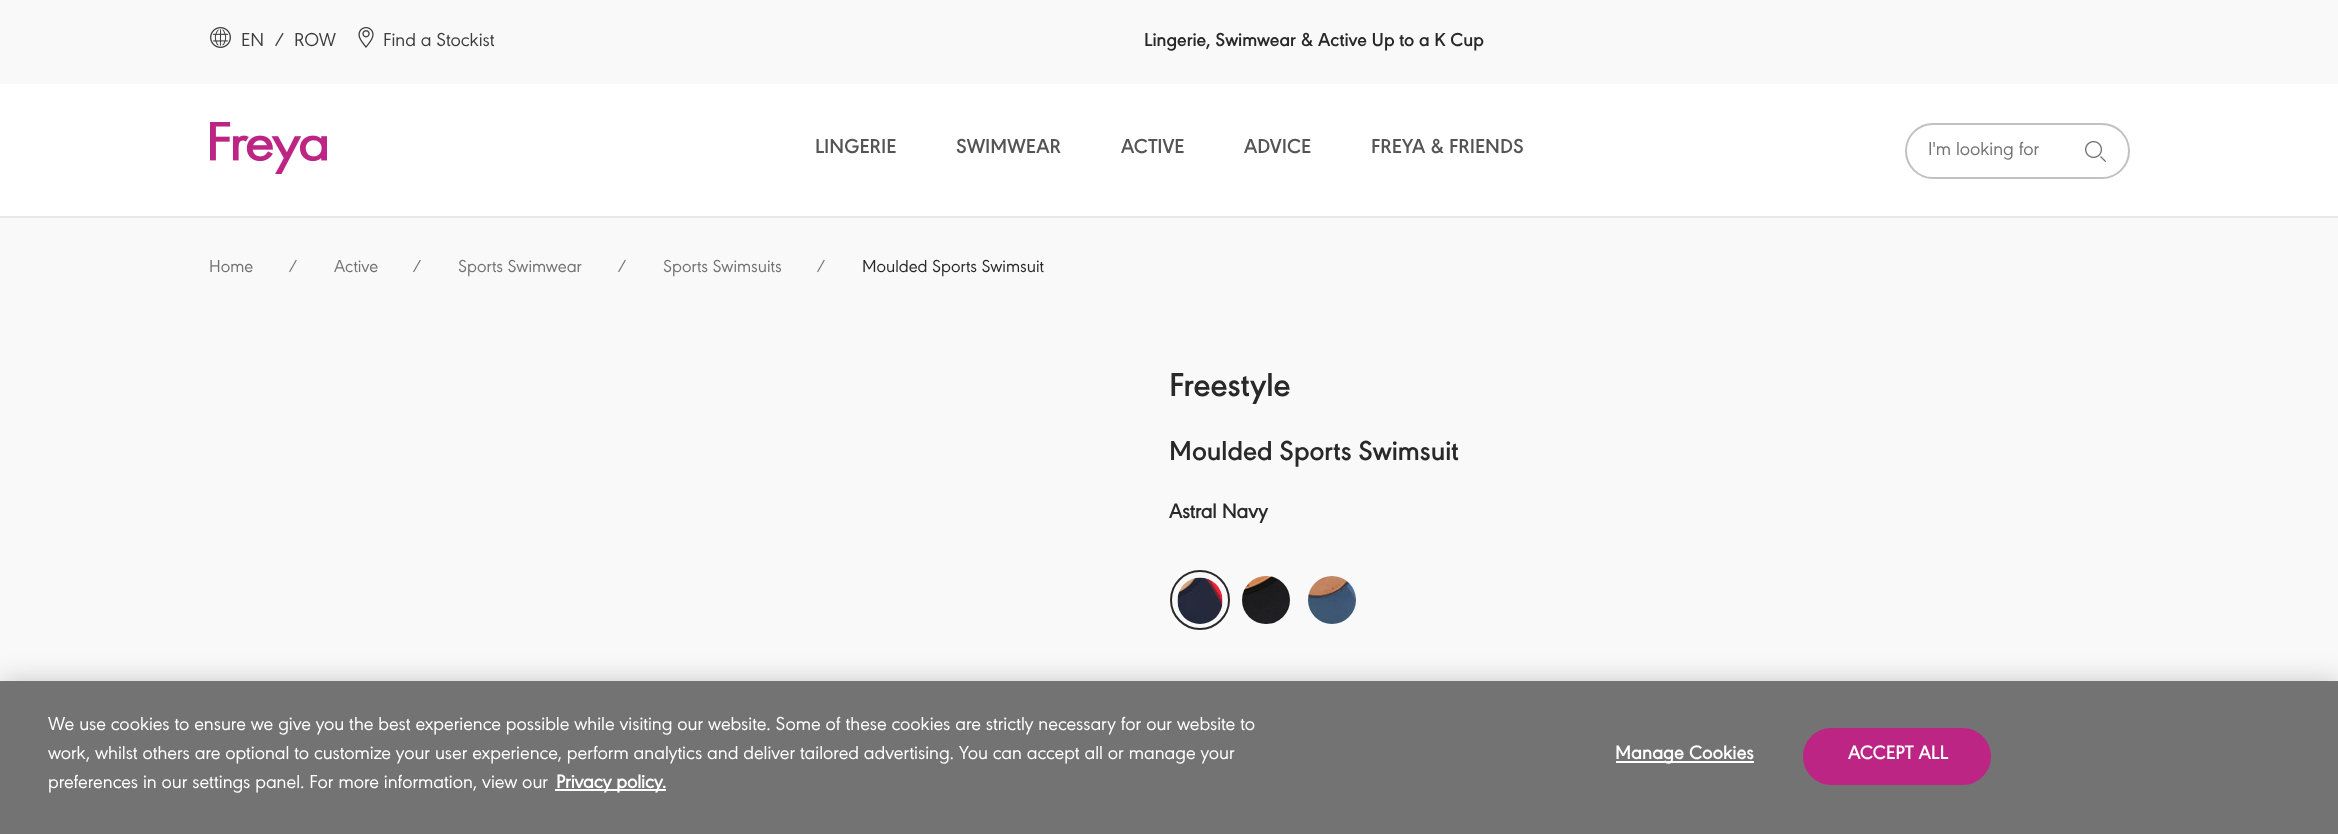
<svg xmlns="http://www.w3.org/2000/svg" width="2338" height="834">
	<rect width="100%" height="100%" fill="#F9F9F9" />
	<image x="210" y="27" width="21" height="21" href="assets/img1.png" />
	<g font-family="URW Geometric" font-size="19.5" fill="#3E3E3E">
		<text x="241" y="46">EN</text>
		<text x="274" y="46">/</text>
		<text x="294" y="46">ROW</text>
	</g>
	<image x="358" y="27" width="16" height="21" href="assets/img2.png" />
	<text x="383" y="46" font-family="URW Geometric" font-size="19.5" fill="#3E3E3E">Find a Stockist</text>
	<text x="1144" y="46" font-family="URW Geometric" font-size="19.5" font-weight="600" fill="#292929">Lingerie, Swimwear &amp; Active Up to a K Cup</text>
	<path d="M0 216V218H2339V86H2338V216Z" fill="#E8E8E8" />
	<rect x="0" y="84" width="2338" height="132" fill="#FFFFFF" />
	<image x="210" y="122" width="117" height="52" href="assets/img3.png" />
	<g font-family="URW Geometric" font-size="21" font-weight="600" fill="#545454">
		<text x="815" y="153">LINGERIE</text>
		<text x="956" y="153">SWIMWEAR</text>
		<text x="1121" y="153">ACTIVE</text>
		<text x="1244" y="153">ADVICE</text>
		<text x="1371" y="153">FREYA &amp; FRIENDS</text>
	</g>
	<rect x="1906" y="124" width="223" height="54" rx="27" fill="none" stroke="#C1C1C2" stroke-width="2" />
	<text x="1928" y="155" font-family="URW Geometric" font-size="19.5" fill="#737373">I'm looking for</text>
	<image x="2085" y="141" width="21" height="21" href="assets/img4.png" />
	<g font-family="URW Geometric" font-size="18" fill="#737373">
		<text x="209" y="272">Home</text>
		<text x="288" y="272">/</text>
		<text x="334" y="272">Active</text>
		<text x="412" y="272">/</text>
		<text x="458" y="272">Sports Swimwear</text>
		<text x="617" y="272">/</text>
		<text x="663" y="272">Sports Swimsuits</text>
		<text x="816" y="272">/</text>
	</g>
	<text x="862" y="272" font-family="URW Geometric" font-size="18" fill="#292929">Moulded Sports Swimsuit</text>
	<text x="1169" y="396" font-family="URW Geometric" font-size="34.5" font-weight="600" fill="#292929">Freestyle</text>
	<text x="1169" y="460" font-family="URW Geometric" font-size="28.5" font-weight="600" fill="#292929">Moulded Sports Swimsuit</text>
	<text x="1169" y="518" font-family="URW Geometric" font-size="21" font-weight="700" fill="#292929">Astral Navy</text>
	<circle cx="1200" cy="600" r="29" fill="none" stroke="#292929" stroke-width="2" />
	<image x="1177" y="577" width="46" height="47" href="assets/img5.png" />
	<image x="1242" y="576" width="48" height="48" href="assets/img6.png" />
	<image x="1308" y="576" width="48" height="48" href="assets/img7.png" />
	<rect x="0" y="681" width="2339" height="153" fill="#000000" fill-opacity="0.2" filter="blur(13.5px)" />
	<rect x="0" y="681" width="2338" height="153" fill="#737373" />
	<g font-family="URW Geometric" font-size="19.5" fill="#FFFFFF">
		<text x="48" y="730">We use cookies to ensure we give you the best experience possible while visiting our website. Some of these cookies are strictly necessary for our website to</text>
		<text x="48" y="759">work, whilst others are optional to customize your user experience, perform analytics and deliver tailored advertising. You can accept all or manage your</text>
		<text x="48" y="788">preferences in our settings panel. For more information, view our</text>
	</g>
	<rect x="555" y="789" width="111" height="2" fill="#FFFFFF" />
	<text x="556" y="788" font-family="URW Geometric" font-size="19.5" font-weight="700" fill="#FFFFFF">Privacy policy.</text>
	<rect x="1616" y="761" width="138" height="2" fill="#FFFFFF" />
	<text x="1615" y="759" font-family="URW Geometric" font-size="19.5" font-weight="700" letter-spacing="0.25" fill="#FFFFFF">Manage Cookies</text>
	<rect x="1804" y="729" width="186" height="55" rx="27.5" fill="#BD2585" stroke="#BD2585" stroke-width="2" />
	<text x="1848" y="759" font-family="URW Geometric" font-size="19.5" font-weight="700" letter-spacing="0.25" fill="#FFFFFF">ACCEPT ALL</text>
</svg>
